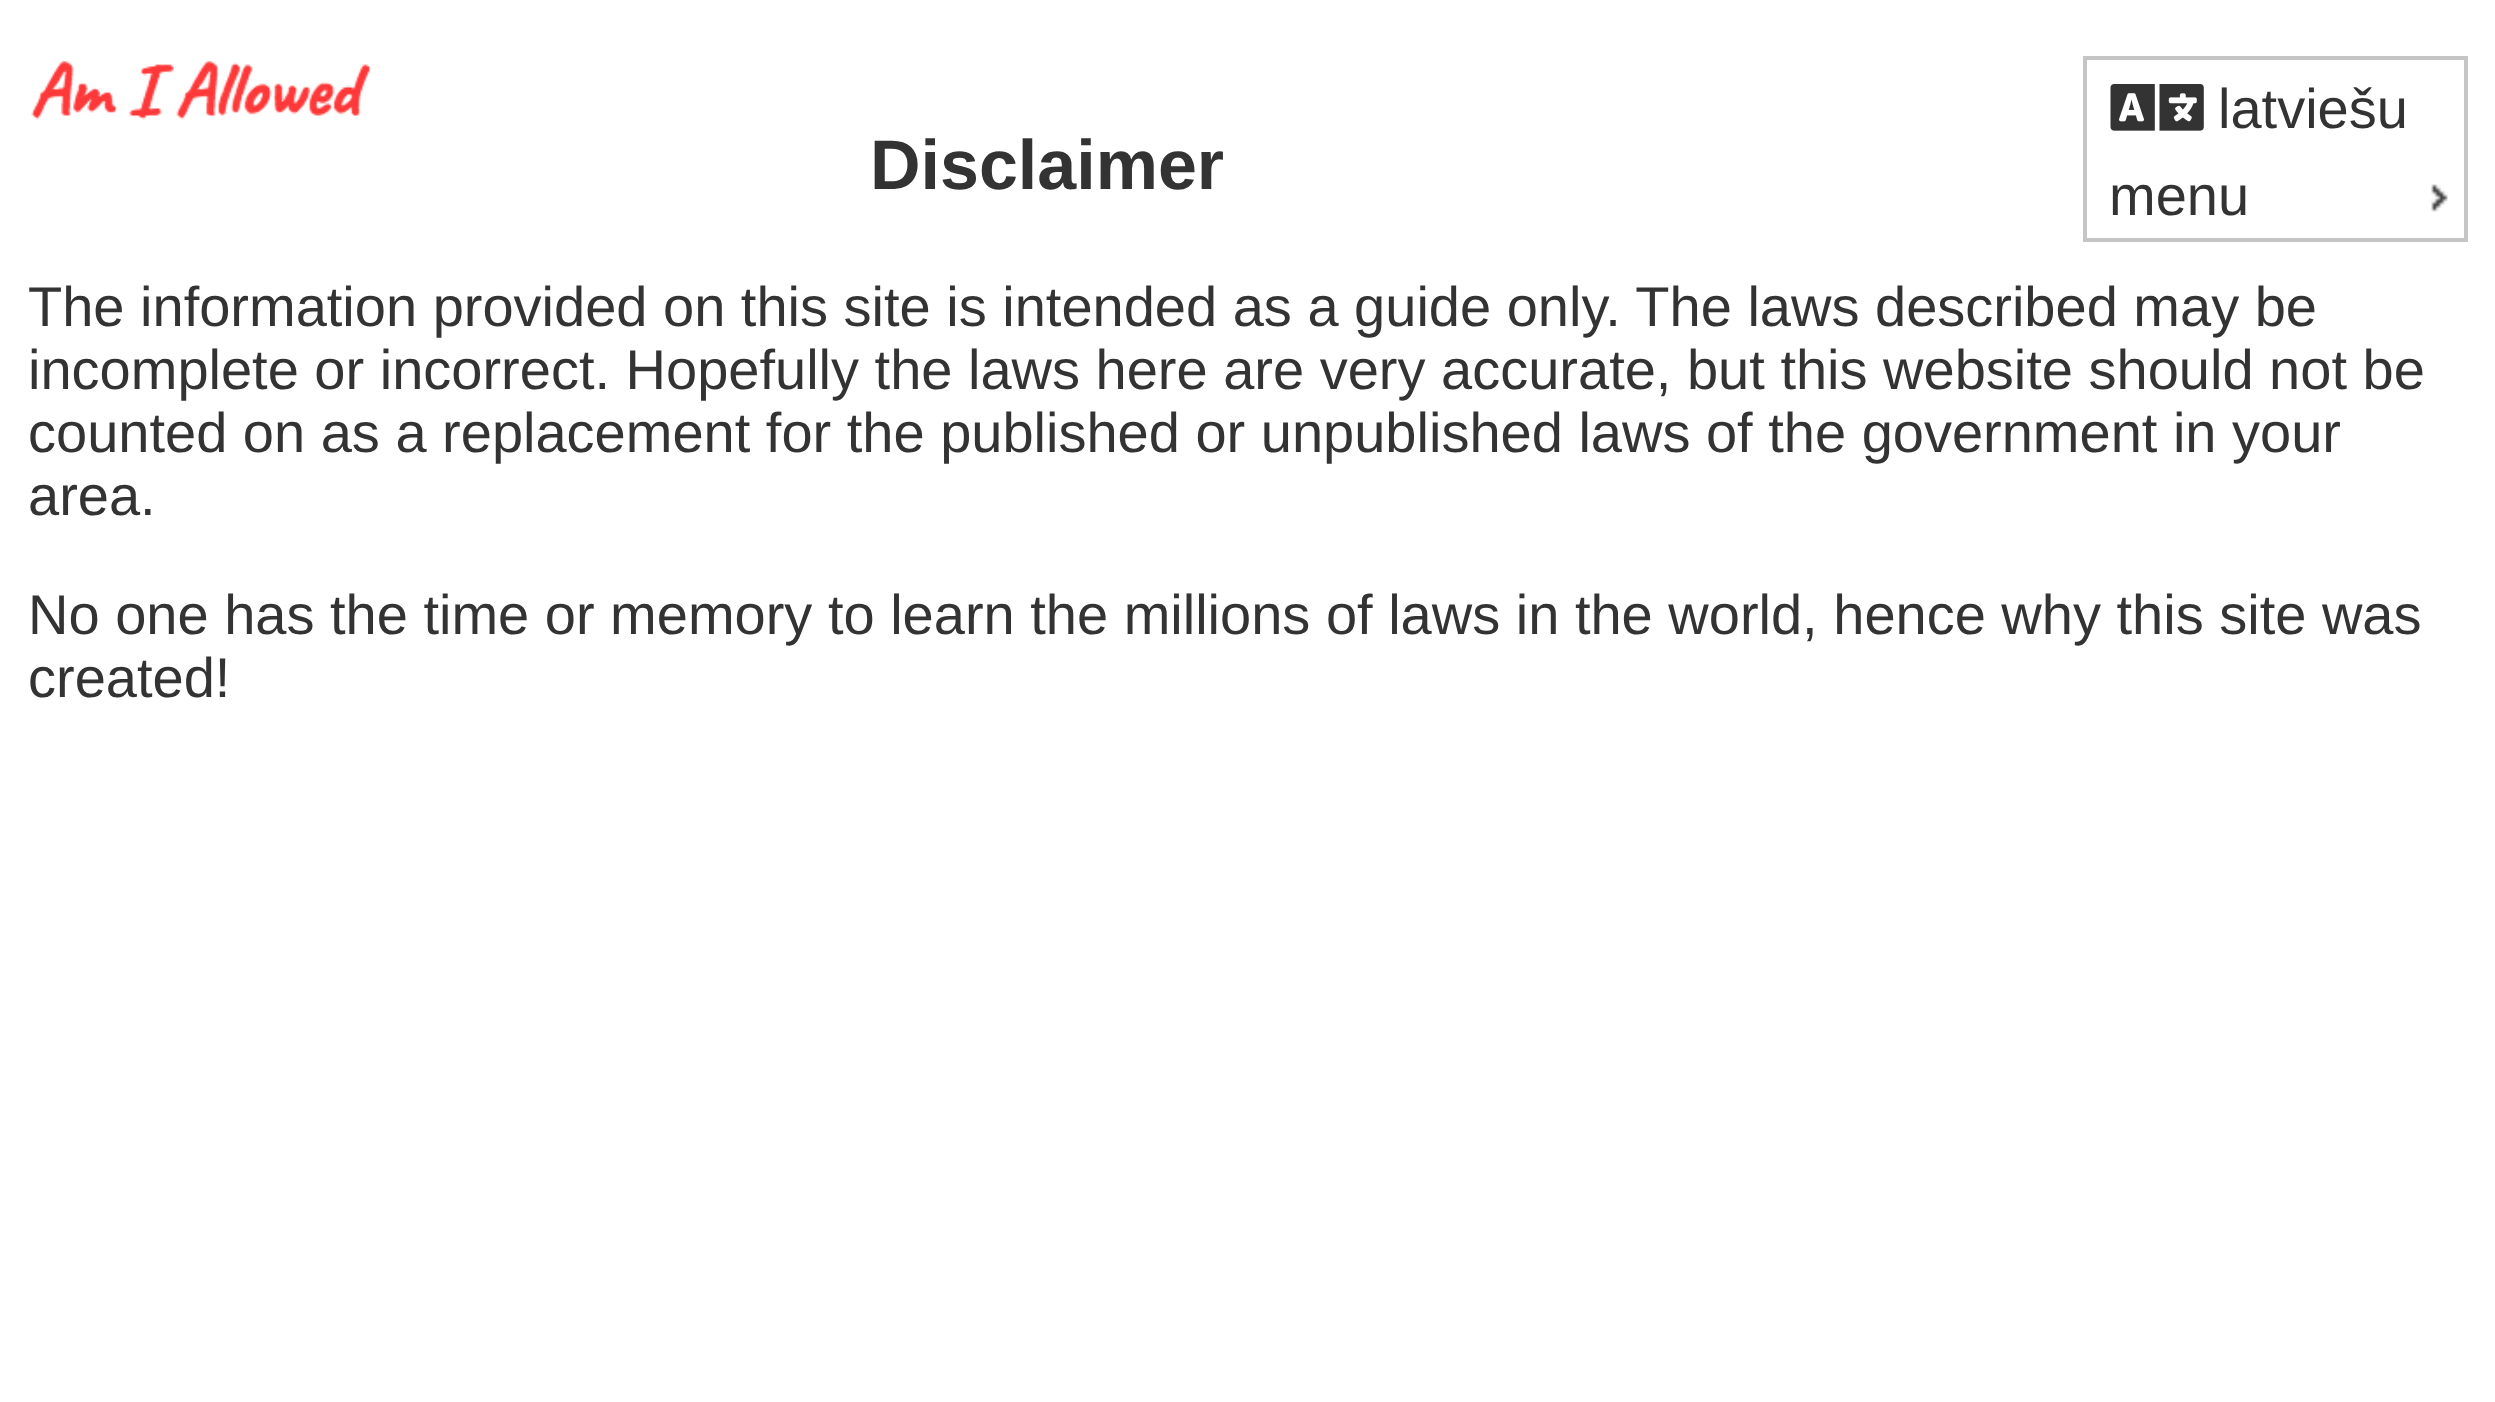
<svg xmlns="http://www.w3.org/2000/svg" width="2495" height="1402">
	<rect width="100%" height="100%" fill="#FFFFFF" />
	<image x="31" y="60" width="340" height="60" href="assets/img1.png" />
	<rect x="2085" y="58" width="381" height="182" fill="none" stroke="#C5C5C5" stroke-width="4" />
	<image x="2110" y="84" width="94" height="47" href="assets/img2.png" />
	<g font-family="Liberation Sans" font-size="56" fill="#333333">
		<text x="2218" y="128">latviešu</text>
		<text x="2109" y="215">menu</text>
	</g>
	<image x="2431" y="184" width="17" height="28" href="assets/img3.png" />
	<text x="870" y="189" font-family="Liberation Sans" font-size="70" font-weight="700" fill="#333333">Disclaimer</text>
	<g font-family="Liberation Sans" font-size="56" fill="#333333">
		<text x="28" y="326">The information provided on this site is intended as a guide only. The laws described may be</text>
		<text x="28" y="389">incomplete or incorrect. Hopefully the laws here are very accurate, but this website should not be</text>
		<text x="28" y="452">counted on as a replacement for the published or unpublished laws of the government in your</text>
		<text x="28" y="515">area.</text>
		<text x="28" y="634">No one has the time or memory to learn the millions of laws in the world, hence why this site was</text>
		<text x="28" y="697">created!</text>
	</g>
</svg>
